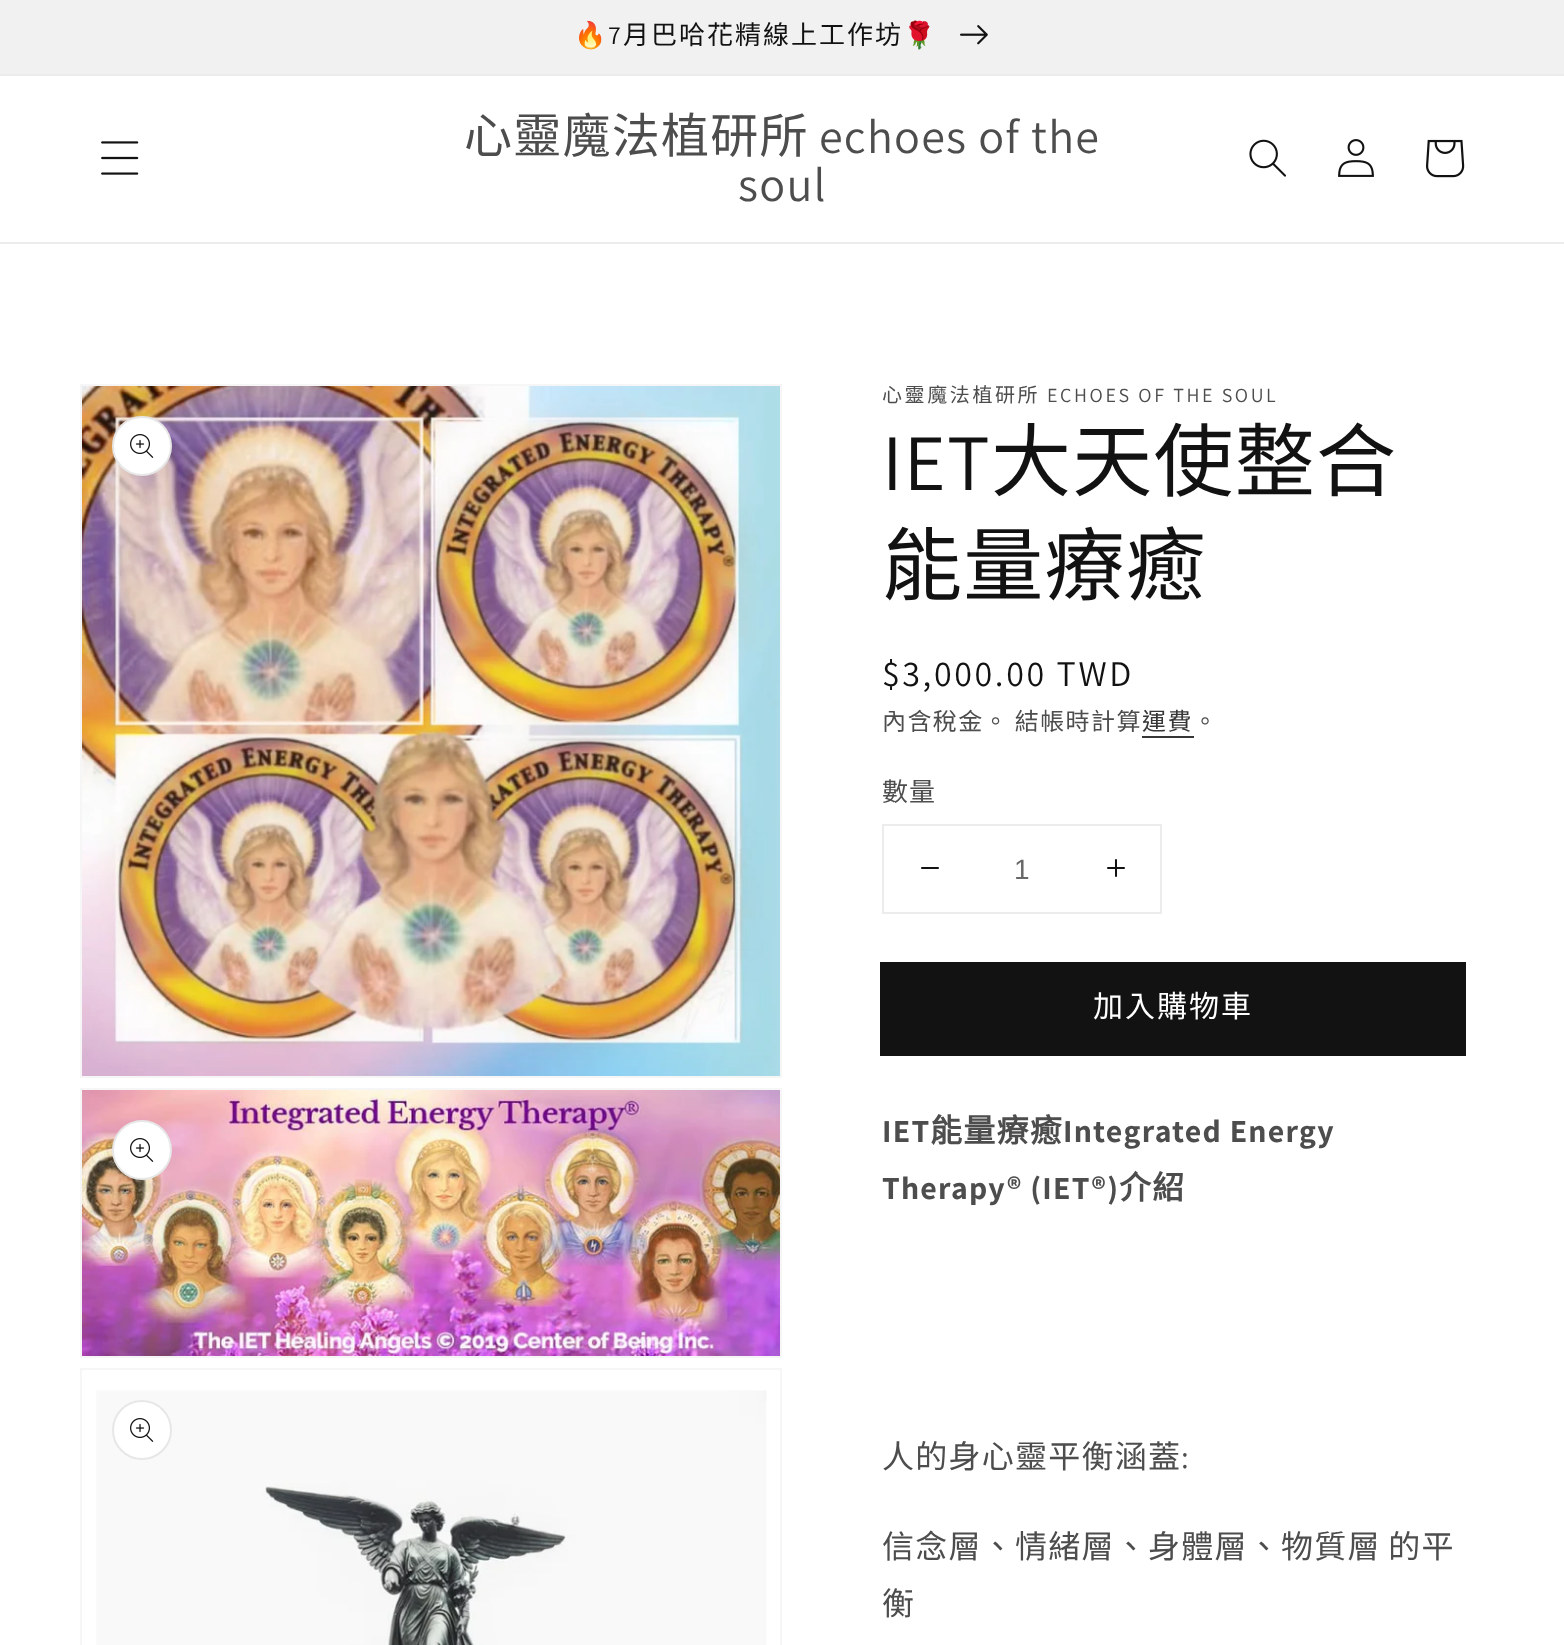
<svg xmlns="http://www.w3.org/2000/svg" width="1564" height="1645">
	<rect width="100%" height="100%" fill="#FFFFFF" />
	<rect x="0" y="74" width="1564" height="2" fill="#ECECEC" />
	<rect x="0" y="0" width="1564" height="74" fill="#F1F1F1" />
	<text x="574" y="44" font-family="Noto Color Emoji" font-size="26" letter-spacing="2" fill="#121212">🔥</text>
	<text x="608" y="44" font-family="Assistant" font-size="26" letter-spacing="2" fill="#121212">7</text>
	<text x="623" y="44" font-family="Noto Sans CJK TC" font-size="26" letter-spacing="2" fill="#121212">月巴哈花精線上工作坊</text>
	<text x="903" y="44" font-family="Noto Color Emoji" font-size="26" letter-spacing="2" fill="#121212">🌹</text>
	<image x="960" y="25" width="28" height="20" href="assets/img1.png" />
	<rect x="0" y="242" width="1564" height="2" fill="#ECECEC" />
	<image x="101" y="141" width="38" height="34" href="assets/img2.png" />
	<text x="464" y="153" font-family="Noto Sans CJK TC" font-size="48" letter-spacing="1.25" fill="#4D4D4D">心靈魔法植研所</text>
	<g font-family="Assistant" font-size="48" letter-spacing="1.25" fill="#4D4D4D">
		<text x="819" y="153">echoes of the</text>
		<text x="738" y="201">soul</text>
	</g>
	<image x="1249" y="139" width="37" height="38" href="assets/img3.png" />
	<image x="1338" y="139" width="36" height="38" href="assets/img4.png" />
	<image x="1426" y="139" width="39" height="39" href="assets/img5.png" />
	<rect x="81" y="385" width="700" height="692" fill="none" stroke="#F6F6F6" stroke-width="2" />
	<image x="82" y="386" width="698" height="690" href="assets/img6.png" />
	<circle cx="142" cy="446" r="30" fill="#FFFFFF" />
	<circle cx="142" cy="446" r="29" fill="none" stroke="#121212" stroke-opacity="0.1" stroke-width="2" />
	<image x="130" y="434" width="24" height="24" href="assets/img7.png" />
	<rect x="81" y="1089" width="700" height="268" fill="none" stroke="#F6F6F6" stroke-width="2" />
	<image x="82" y="1090" width="698" height="266" href="assets/img8.png" />
	<circle cx="142" cy="1150" r="30" fill="#FFFFFF" />
	<circle cx="142" cy="1150" r="29" fill="none" stroke="#121212" stroke-opacity="0.1" stroke-width="2" />
	<image x="130" y="1138" width="24" height="24" href="assets/img7.png" />
	<rect x="81" y="1369" width="700" height="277" fill="none" stroke="#F6F6F6" stroke-width="2" />
	<image x="96" y="1390" width="671" height="255" href="assets/img9.png" />
	<circle cx="142" cy="1430" r="30" fill="#FFFFFF" />
	<circle cx="142" cy="1430" r="29" fill="none" stroke="#121212" stroke-opacity="0.1" stroke-width="2" />
	<image x="130" y="1418" width="24" height="24" href="assets/img7.png" />
	<text x="882" y="402" font-family="Noto Sans CJK TC" font-size="20" letter-spacing="2.6" fill="#4D4D4D">心靈魔法植研所</text>
	<text x="1047" y="402" font-family="Assistant" font-size="20" letter-spacing="2.6" fill="#4D4D4D">ECHOES OF THE SOUL</text>
	<text x="882" y="490" font-family="Assistant" font-size="80" letter-spacing="1.25" fill="#121212">IET</text>
	<g font-family="Noto Sans CJK TC" font-size="80" letter-spacing="1.25" fill="#121212">
		<text x="991" y="490">大天使整合</text>
		<text x="882" y="594">能量療癒</text>
	</g>
	<text x="882" y="686" font-family="Assistant" font-size="36" letter-spacing="2.6" fill="#121212">$3,000.00 TWD</text>
	<text x="882" y="730" word-spacing="-1" font-family="Noto Sans CJK TC" font-size="24" letter-spacing="1.4" fill="#4D4D4D">內含稅金。 結帳時計算</text>
	<text x="1142" y="730" font-family="Noto Sans CJK TC" font-size="24" letter-spacing="1.4" fill="#363636">運費</text>
	<rect x="1142" y="736" width="52" height="2" fill="#363636" />
	<text x="1193" y="730" font-family="Noto Sans CJK TC" font-size="24" letter-spacing="1.4" fill="#4D4D4D">。</text>
	<text x="882" y="801" font-family="Noto Sans CJK TC" font-size="26" letter-spacing="1" fill="#4D4D4D">數量</text>
	<rect x="883" y="825" width="278" height="88" fill="none" stroke="#ECECEC" stroke-width="2" />
	<image x="921" y="867" width="18" height="2" href="assets/img10.png" />
	<text x="1014" y="879" font-family="Liberation Sans" font-size="28" fill="#686868">1</text>
	<image x="1107" y="859" width="18" height="18" href="assets/img11.png" />
	<rect x="881" y="963" width="584" height="92" fill="none" stroke="#121212" stroke-width="2" />
	<rect x="882" y="964" width="582" height="90" fill="#121212" />
	<text x="1093" y="1017" font-family="Noto Sans CJK TC" font-size="30" letter-spacing="2" fill="#FFFFFF">加入購物車</text>
	<text x="882" y="1142" font-family="Assistant" font-size="32" font-weight="700" letter-spacing="1.25" fill="#4D4D4D">IET</text>
	<text x="930" y="1142" font-family="Noto Sans CJK TC" font-size="32" font-weight="700" letter-spacing="1.25" fill="#4D4D4D">能量療癒</text>
	<g font-family="Assistant" font-size="32" font-weight="700" letter-spacing="1.25" fill="#4D4D4D">
		<text x="1063" y="1142">Integrated Energy</text>
		<text x="882" y="1199">Therapy® (IET®)</text>
	</g>
	<text x="1119" y="1199" font-family="Noto Sans CJK TC" font-size="32" font-weight="700" letter-spacing="1.25" fill="#4D4D4D">介紹</text>
	<text x="882" y="1468" font-family="Noto Sans CJK TC" font-size="32" letter-spacing="1.25" fill="#4D4D4D">人的身心靈平衡涵蓋</text>
	<text x="1181" y="1468" font-family="Assistant" font-size="32" letter-spacing="1.25" fill="#4D4D4D">:</text>
	<g font-family="Noto Sans CJK TC" font-size="32" letter-spacing="1.25" fill="#4D4D4D">
		<text x="882" y="1558" word-spacing="-1">信念層、情緒層、身體層、物質層 的平</text>
		<text x="882" y="1615">衡</text>
	</g>
</svg>
